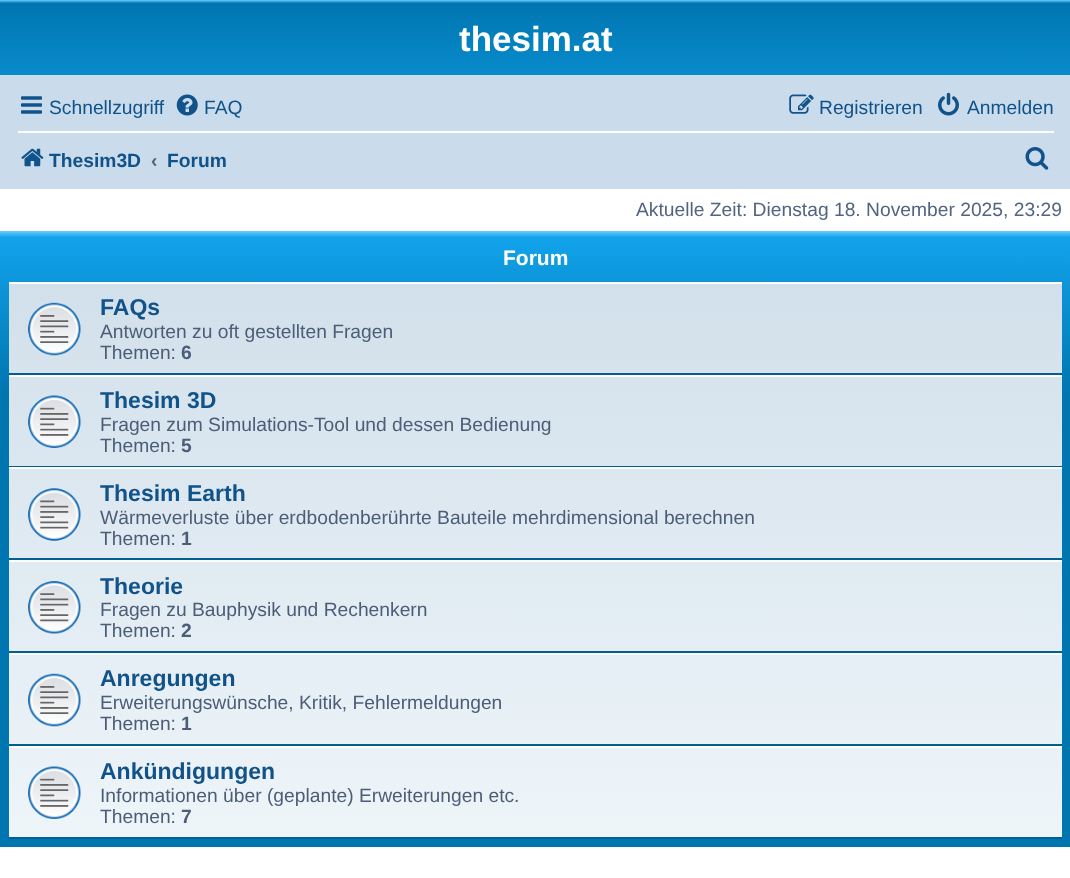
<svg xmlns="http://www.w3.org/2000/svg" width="1070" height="878">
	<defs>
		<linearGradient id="g1" gradientUnits="userSpaceOnUse" x1="536" y1="0" x2="536" y2="161"><stop offset="0" stop-color="#6ACEFF" /><stop offset="0.02" stop-color="#0076B1" /><stop offset="1" stop-color="#12A3EB" /></linearGradient>
		<linearGradient id="g2" gradientUnits="userSpaceOnUse" x1="536" y1="231" x2="536" y2="847"><stop offset="0" stop-color="#6ACEFF" /><stop offset="0.01" stop-color="#12A3EB" /><stop offset="0.26" stop-color="#0076B1" /><stop offset="1" stop-color="#0076B1" /></linearGradient>
		<linearGradient id="g3" gradientUnits="userSpaceOnUse" x1="536" y1="282" x2="536" y2="838"><stop offset="0" stop-color="#D2E0EB" /><stop offset="1" stop-color="#EEF5F9" /></linearGradient>
	</defs>
	<rect width="100%" height="100%" fill="#FFFFFF" />
	<rect x="0" y="0" width="1070" height="75" fill="url(#g1)" />
	<text x="459" y="51" font-family="Liberation Sans" font-size="35" font-weight="700" fill="#FFFFFF">thesim.at</text>
	<rect x="0" y="75" width="1070" height="114" fill="#CADCEB" />
	<image x="21" y="96" width="21" height="18" href="assets/img1.png" />
	<text x="49" y="114" font-family="Liberation Sans" font-size="19.25" fill="#105289">Schnellzugriff</text>
	<image x="176" y="94" width="22" height="22" href="assets/img2.png" />
	<text x="204" y="114" font-family="Liberation Sans" font-size="19.25" fill="#105289">FAQ</text>
	<image x="789" y="94" width="25" height="20" href="assets/img3.png" />
	<text x="819" y="114" font-family="Liberation Sans" font-size="19.25" fill="#105289">Registrieren</text>
	<image x="938" y="92" width="21" height="24" href="assets/img4.png" />
	<text x="967" y="114" font-family="Liberation Sans" font-size="19.25" fill="#105289">Anmelden</text>
	<rect x="18" y="131" width="1036" height="2" fill="#FFFFFF" />
	<image x="21" y="148" width="23" height="19" href="assets/img5.png" />
	<text x="49" y="167" font-family="Liberation Sans" font-size="19.25" font-weight="700" fill="#105289">Thesim3D</text>
	<text x="151" y="167" font-family="Liberation Sans" font-size="19.25" font-weight="700" fill="#536482">‹</text>
	<text x="167" y="167" font-family="Liberation Sans" font-size="19.25" font-weight="700" fill="#105289">Forum</text>
	<image x="1025" y="147" width="24" height="23" href="assets/img6.png" />
	<text x="636" y="216" font-family="Liberation Sans" font-size="19.25" fill="#536482">Aktuelle Zeit: Dienstag 18. November 2025, 23:29</text>
	<rect x="0" y="231" width="1070" height="616" fill="url(#g2)" />
	<text x="503" y="265" font-family="Liberation Sans" font-size="21" font-weight="700" fill="#FFFFFF">Forum</text>
	<rect x="9" y="284" width="1053" height="553" fill="url(#g3)" />
	<rect x="9" y="282" width="1053" height="2" fill="#FFFFFF" />
	<rect x="9" y="373" width="1053" height="2" fill="#00608F" />
	<image x="28" y="302" width="53" height="54" href="assets/img7.png" />
	<text x="100" y="315" font-family="Liberation Sans" font-size="23" font-weight="700" fill="#105289">FAQs</text>
	<g font-family="Liberation Sans" font-size="19.25" fill="#4C5D77">
		<text x="100" y="338">Antworten zu oft gestellten Fragen</text>
		<text x="100" y="359">Themen:</text>
	</g>
	<text x="181" y="359" font-family="Liberation Sans" font-size="19.25" font-weight="700" fill="#4C5D77">6</text>
	<rect x="9" y="375" width="1053" height="2" fill="#FFFFFF" />
	<rect x="9" y="466" width="1053" height="1" fill="#00608F" />
	<image x="28" y="395" width="53" height="53" href="assets/img8.png" />
	<text x="100" y="408" font-family="Liberation Sans" font-size="23" font-weight="700" fill="#105289">Thesim 3D</text>
	<g font-family="Liberation Sans" font-size="19.25" fill="#4C5D77">
		<text x="100" y="431">Fragen zum Simulations-Tool und dessen Bedienung</text>
		<text x="100" y="452">Themen:</text>
	</g>
	<text x="181" y="452" font-family="Liberation Sans" font-size="19.25" font-weight="700" fill="#4C5D77">5</text>
	<rect x="9" y="467" width="1053" height="2" fill="#FFFFFF" />
	<rect x="9" y="558" width="1053" height="2" fill="#00608F" />
	<image x="28" y="488" width="53" height="53" href="assets/img9.png" />
	<text x="100" y="501" font-family="Liberation Sans" font-size="23" font-weight="700" fill="#105289">Thesim Earth</text>
	<g font-family="Liberation Sans" font-size="19.25" fill="#4C5D77">
		<text x="100" y="524">Wärmeverluste über erdbodenberührte Bauteile mehrdimensional berechnen</text>
		<text x="100" y="545">Themen:</text>
	</g>
	<text x="181" y="545" font-family="Liberation Sans" font-size="19.25" font-weight="700" fill="#4C5D77">1</text>
	<rect x="9" y="560" width="1053" height="2" fill="#FFFFFF" />
	<rect x="9" y="651" width="1053" height="2" fill="#00608F" />
	<image x="28" y="581" width="53" height="53" href="assets/img10.png" />
	<text x="100" y="594" font-family="Liberation Sans" font-size="23" font-weight="700" fill="#105289">Theorie</text>
	<g font-family="Liberation Sans" font-size="19.25" fill="#4C5D77">
		<text x="100" y="616">Fragen zu Bauphysik und Rechenkern</text>
		<text x="100" y="637">Themen:</text>
	</g>
	<text x="181" y="637" font-family="Liberation Sans" font-size="19.25" font-weight="700" fill="#4C5D77">2</text>
	<rect x="9" y="653" width="1053" height="2" fill="#FFFFFF" />
	<rect x="9" y="744" width="1053" height="2" fill="#00608F" />
	<image x="28" y="673" width="53" height="54" href="assets/img11.png" />
	<text x="100" y="686" font-family="Liberation Sans" font-size="23" font-weight="700" fill="#105289">Anregungen</text>
	<g font-family="Liberation Sans" font-size="19.25" fill="#4C5D77">
		<text x="100" y="709">Erweiterungswünsche, Kritik, Fehlermeldungen</text>
		<text x="100" y="730">Themen:</text>
	</g>
	<text x="181" y="730" font-family="Liberation Sans" font-size="19.25" font-weight="700" fill="#4C5D77">1</text>
	<rect x="9" y="746" width="1053" height="2" fill="#FFFFFF" />
	<rect x="9" y="837" width="1053" height="2" fill="#00608F" />
	<image x="28" y="766" width="53" height="53" href="assets/img12.png" />
	<text x="100" y="779" font-family="Liberation Sans" font-size="23" font-weight="700" fill="#105289">Ankündigungen</text>
	<g font-family="Liberation Sans" font-size="19.25" fill="#4C5D77">
		<text x="100" y="802">Informationen über (geplante) Erweiterungen etc.</text>
		<text x="100" y="823">Themen:</text>
	</g>
	<text x="181" y="823" font-family="Liberation Sans" font-size="19.25" font-weight="700" fill="#4C5D77">7</text>
</svg>
